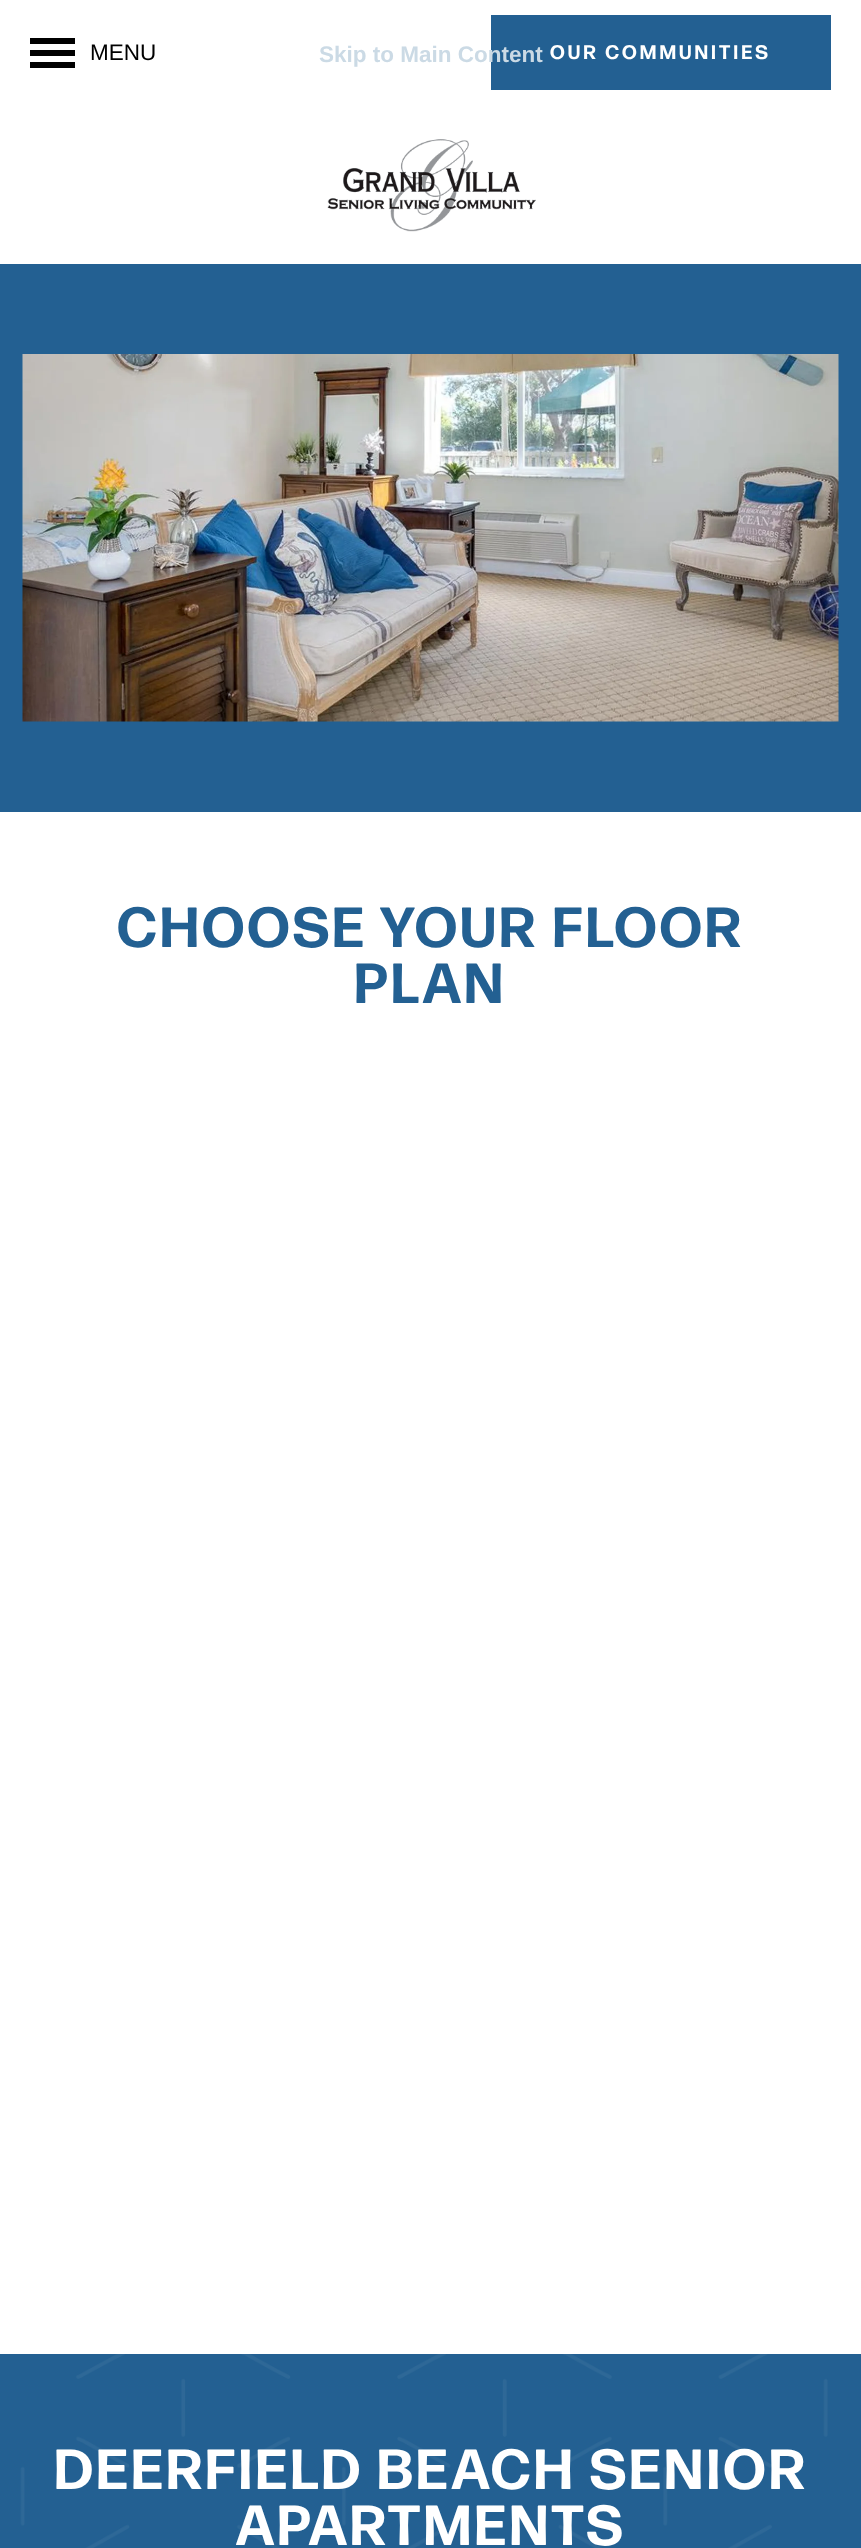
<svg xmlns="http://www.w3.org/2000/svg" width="861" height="2548">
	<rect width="100%" height="100%" fill="#FFFFFF" />
	<rect x="30" y="38" width="45" height="6" fill="#000000" />
	<rect x="30" y="50" width="45" height="6" fill="#000000" />
	<rect x="30" y="62" width="45" height="6" fill="#000000" />
	<text x="90" y="60" font-family="Liberation Sans" font-size="22.5" fill="#000000">MENU</text>
	<rect x="491" y="15" width="340" height="75" fill="#236092" />
	<text x="550" y="59" font-family="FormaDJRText" font-size="19.5" font-weight="700" letter-spacing="3" fill="#FFFFFF">OUR COMMUNITIES</text>
	<image x="327" y="139" width="209" height="93" href="assets/img1.png" />
	<rect x="0" y="264" width="861" height="548" fill="#236092" />
	<image x="22" y="354" width="817" height="368" href="assets/img2.png" />
	<g font-family="FormaDJRText" font-size="56.25" font-weight="700" letter-spacing="3" fill="#236092">
		<text x="117" y="947">CHOOSE YOUR FLOOR</text>
		<text x="354" y="1003">PLAN</text>
	</g>
	<rect x="0" y="2354" width="861" height="194" fill="#236092" />
	<image x="20" y="2354" width="808" height="194" href="assets/img3.png" />
	<g font-family="FormaDJRText" font-size="56.25" font-weight="700" letter-spacing="3" fill="#FFFFFF">
		<text x="54" y="2489">DEERFIELD BEACH SENIOR</text>
		<text x="236" y="2545">APARTMENTS</text>
	</g>
	<text x="319" y="62" font-family="Liberation Sans" font-size="22.5" font-weight="700" fill="#CBDAE5">Skip to Main Content</text>
</svg>
